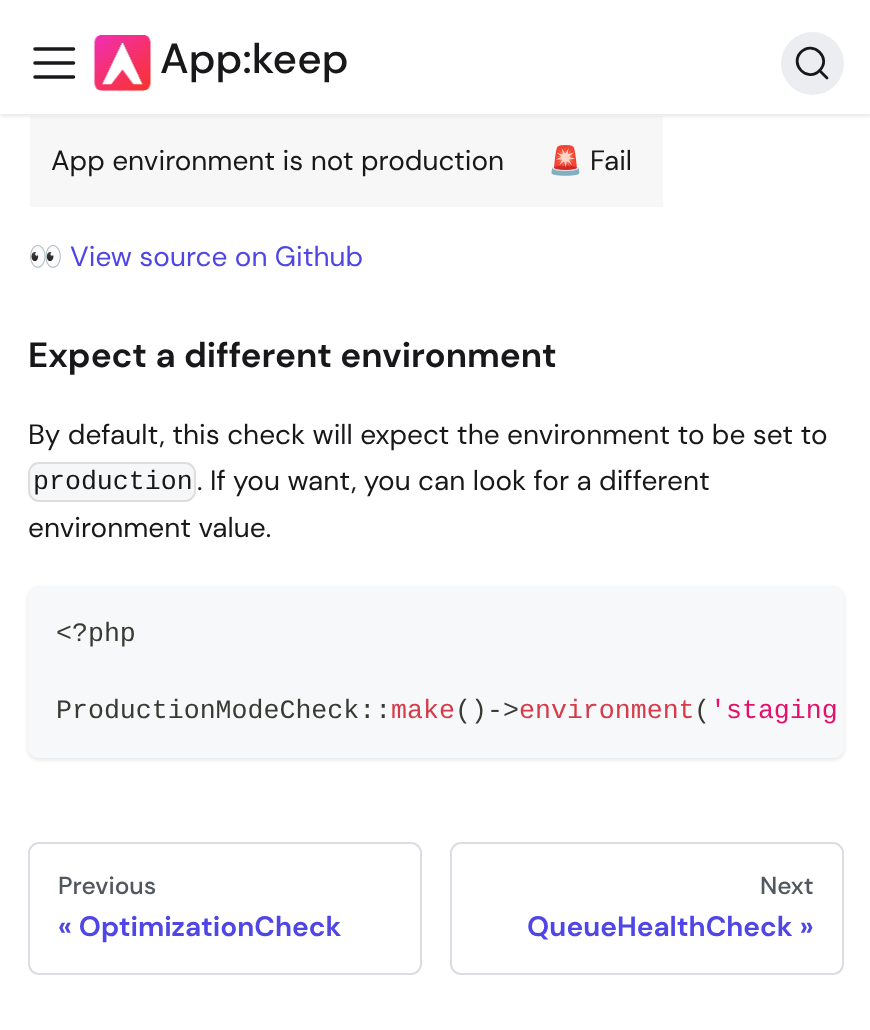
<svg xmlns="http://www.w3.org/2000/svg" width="870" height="1030">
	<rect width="100%" height="100%" fill="#FFFFFF" />
	<rect x="30" y="116" width="633" height="91" fill="#F7F7F7" />
	<rect x="0" y="2" width="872" height="114" fill="#000000" fill-opacity="0.1" filter="blur(2px)" />
	<rect x="0" y="0" width="870" height="114" fill="#FFFFFF" />
	<path d="M35 49H73.5M35 63H73.5M35 77H73.5" fill="none" stroke="#18181B" stroke-width="3.5" stroke-linecap="round" />
	<image x="94" y="35" width="57" height="56" href="assets/img1.png" />
	<text x="160" y="73" font-family="DM Sans" font-size="42" font-weight="500" fill="#18181B">App:keep</text>
	<circle cx="812.5" cy="63.5" r="31.5" fill="#EBEDF0" />
	<path d="M819.5 70.5L827 78L819.5 70.5C807.5 83 789 64.5 801 52C813.5 40 832 58.5 819.5 70.5Z" fill="none" stroke="#18181B" stroke-width="2.8" stroke-linecap="round" stroke-linejoin="round" />
	<text x="51" y="170" font-family="DM Sans" font-size="28" fill="#18181B">App environment is not production</text>
	<text x="548" y="170" font-family="Noto Color Emoji" font-size="28" fill="#18181B">🚨</text>
	<text x="590" y="170" font-family="DM Sans" font-size="28" fill="#18181B">Fail</text>
	<text x="28" y="266" font-family="Noto Color Emoji" font-size="28" fill="#4F46E5">👀</text>
	<text x="70" y="266" font-family="DM Sans" font-size="28" fill="#4F46E5">View source on Github</text>
	<text x="28" y="367" font-family="DM Sans" font-size="35" font-weight="700" fill="#18181B">Expect a different environment</text>
	<text x="28" y="444" font-family="DM Sans" font-size="28" fill="#18181B">By default, this check will expect the environment to be set to</text>
	<rect x="28" y="462" width="168" height="40" rx="11" fill="#F6F7F8" />
	<rect x="29" y="463" width="166" height="38" rx="10" fill="none" stroke="#000000" stroke-opacity="0.1" stroke-width="2" />
	<text x="33" y="489" font-family="Liberation Mono" font-size="26.6" fill="#18181B">production</text>
	<g font-family="DM Sans" font-size="28" fill="#18181B">
		<text x="197" y="490">. If you want, you can look for a different</text>
		<text x="28" y="537">environment value.</text>
	</g>
	<rect x="28" y="588" width="816" height="172" rx="11" fill="#000000" fill-opacity="0.1" filter="blur(2px)" />
	<rect x="28" y="586" width="816" height="172" rx="11" fill="#F6F8FA" />
	<g font-family="Liberation Mono" font-size="26.6" fill="#393A34">
		<text x="56" y="641">&lt;?php</text>
		<text x="56" y="718">ProductionModeCheck::</text>
	</g>
	<text x="391" y="718" font-family="Liberation Mono" font-size="26.6" fill="#D73A49">make</text>
	<text x="455" y="718" font-family="Liberation Mono" font-size="26.6" fill="#393A34">()-&gt;</text>
	<text x="519" y="718" font-family="Liberation Mono" font-size="26.6" fill="#D73A49">environment</text>
	<text x="694" y="718" font-family="Liberation Mono" font-size="26.6" fill="#393A34">(</text>
	<text x="710" y="718" font-family="Liberation Mono" font-size="26.6" fill="#E3116C">'staging</text>
	<rect x="29" y="843" width="392" height="131" rx="10" fill="none" stroke="#DADDE1" stroke-width="2" />
	<text x="58" y="894" font-family="DM Sans" font-size="24.5" font-weight="500" fill="#525860">Previous</text>
	<text x="58" y="936" font-family="DM Sans" font-size="28" font-weight="700" fill="#4F46E5">« OptimizationCheck</text>
	<rect x="451" y="843" width="392" height="131" rx="10" fill="none" stroke="#DADDE1" stroke-width="2" />
	<text x="760" y="894" font-family="DM Sans" font-size="24.5" font-weight="500" fill="#525860">Next</text>
	<text x="527" y="936" font-family="DM Sans" font-size="28" font-weight="700" fill="#4F46E5">QueueHealthCheck »</text>
</svg>
